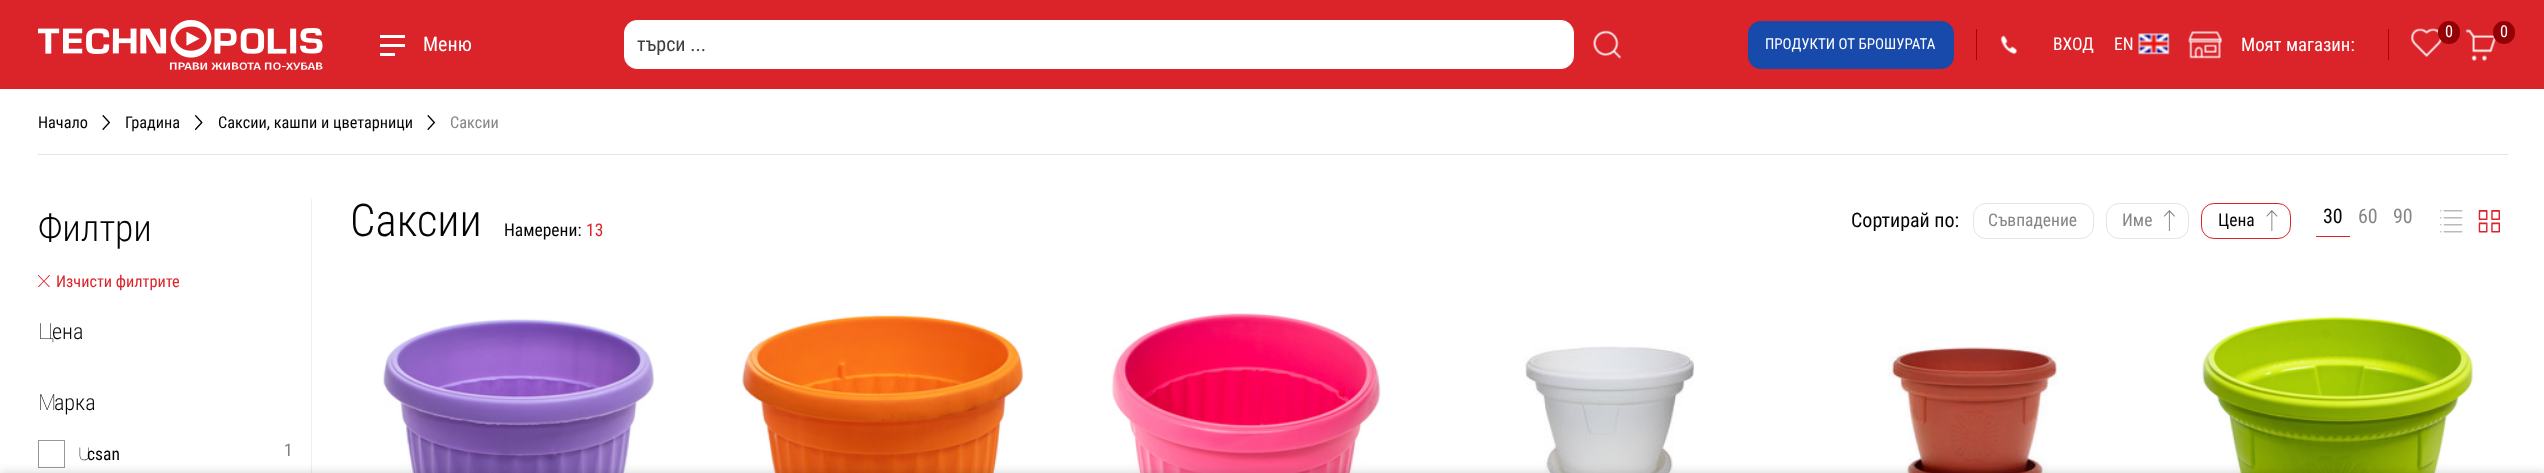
<svg xmlns="http://www.w3.org/2000/svg" width="2544" height="473">
	<rect width="100%" height="100%" fill="#FFFFFF" />
	<rect x="0" y="0" width="2544" height="89" fill="#DB232A" />
	<image x="38" y="20" width="285" height="50" href="assets/img1.png" />
	<rect x="380" y="35" width="25" height="3" fill="#FFFFFF" />
	<rect x="380" y="44" width="25" height="3" fill="#FFFFFF" />
	<rect x="380" y="53" width="15" height="3" fill="#FFFFFF" />
	<text x="423" y="51" font-family="Roboto Condensed" font-size="20" fill="#FFFFFF">Меню</text>
	<rect x="624.5" y="20.5" width="949" height="48" rx="12.5" fill="#FFFFFF" stroke="#FFFFFF" />
	<text x="637" y="51" font-family="Roboto Condensed" font-size="20" fill="#3E3E3E">търси ...</text>
	<image x="1593" y="30" width="29" height="29" href="assets/img2.png" />
	<rect x="2388" y="29" width="1" height="31" fill="#A70006" />
	<image x="2410" y="28" width="32" height="29" href="assets/img3.png" />
	<rect x="2438" y="21" width="22" height="23" rx="11" fill="#930006" />
	<text x="2445" y="37" font-family="Roboto Condensed" font-size="16.25" fill="#FFFFFF">0</text>
	<image x="2465" y="29" width="31" height="32" href="assets/img4.png" />
	<rect x="2493" y="21" width="22" height="23" rx="11" fill="#930006" />
	<text x="2500" y="37" font-family="Roboto Condensed" font-size="16.25" fill="#FFFFFF">0</text>
	<rect x="1748" y="21" width="206" height="48" rx="13" fill="#174AAB" />
	<text x="1765" y="49" font-family="Roboto Condensed" font-size="15" fill="#FFFFFF">ПРОДУКТИ ОТ БРОШУРАТА</text>
	<rect x="1976" y="29" width="1" height="31" fill="#A70006" />
	<image x="2000" y="35" width="17" height="19" href="assets/img5.png" />
	<g font-family="Roboto Condensed" font-size="17.5" fill="#FFFFFF">
		<text x="2053" y="50">ВХОД</text>
		<text x="2114" y="50">EN</text>
	</g>
	<image x="2138" y="33" width="32" height="22" href="assets/img6.png" />
	<image x="2188" y="31" width="35" height="28" href="assets/img7.png" />
	<text x="2241" y="51" font-family="Roboto Condensed" font-size="18.75" fill="#FFFFFF">Моят магазин:</text>
	<rect x="38" y="154" width="2470" height="1" fill="#E4E4E4" />
	<text x="38" y="128" font-family="Roboto Condensed" font-size="16.25" fill="#040404">Начало</text>
	<image x="102" y="115" width="8" height="15" href="assets/img8.png" />
	<text x="125" y="128" font-family="Roboto Condensed" font-size="16.25" fill="#040404">Градина</text>
	<image x="195" y="115" width="8" height="15" href="assets/img9.png" />
	<text x="218" y="128" font-family="Roboto Condensed" font-size="16.25" fill="#040404">Саксии, кашпи и цветарници</text>
	<image x="427" y="115" width="8" height="15" href="assets/img8.png" />
	<text x="450" y="128" font-family="Roboto Condensed" font-size="16.25" fill="#868686">Саксии</text>
	<rect x="311" y="199" width="1" height="274" fill="#EEEEEE" />
	<text x="38" y="241" font-family="Roboto Condensed" font-size="37.5" font-weight="300" fill="#040404">Филтри</text>
	<image x="38" y="275" width="12" height="13" href="assets/img10.png" />
	<text x="56" y="287" font-family="Roboto Condensed" font-size="16.25" fill="#DB232A">Изчисти филтрите</text>
	<text x="38" y="339" font-family="Noto Sans" font-size="22" font-weight="100" fill="#040404">Ц</text>
	<text x="52" y="339" font-family="Roboto Condensed" font-size="22" font-weight="300" fill="#040404">ена</text>
	<text x="38" y="410" font-family="Noto Sans" font-size="22" font-weight="100" fill="#040404">М</text>
	<text x="54" y="410" font-family="Roboto Condensed" font-size="22" font-weight="300" fill="#040404">арка</text>
	<rect x="38.5" y="440.5" width="26" height="27" fill="none" stroke="#979797" />
	<text x="78" y="460" font-family="Noto Sans" font-size="17.5" font-weight="100" fill="#040404">U</text>
	<text x="87" y="460" font-family="Roboto Condensed" font-size="17.5" fill="#040404">csan</text>
	<text x="284" y="456" font-family="Roboto Condensed" font-size="17.5" fill="#7F7F7F">1</text>
	<text x="350" y="236" font-family="Roboto Condensed" font-size="45" font-weight="300" fill="#040404">Саксии</text>
	<text x="504" y="236" font-family="Roboto Condensed" font-size="17.5" fill="#040404">Намерени:</text>
	<text x="586" y="236" font-family="Roboto Condensed" font-size="17.5" fill="#DB232A">13</text>
	<text x="1851" y="227" font-family="Roboto Condensed" font-size="20" fill="#040404">Сортирай по:</text>
	<rect x="1973.5" y="203.5" width="120" height="35" rx="12.5" fill="none" stroke="#E4E4E4" />
	<text x="1988" y="226" font-family="Roboto Condensed" font-size="17.5" fill="#868686">Съвпадение</text>
	<rect x="2106.5" y="203.5" width="82" height="35" rx="12.5" fill="none" stroke="#E4E4E4" />
	<text x="2122" y="226" font-family="Roboto Condensed" font-size="17.5" fill="#868686">Име</text>
	<image x="2164" y="210" width="11" height="21" href="assets/img11.png" />
	<rect x="2201.5" y="203.5" width="89" height="35" rx="12.5" fill="none" stroke="#DB232A" />
	<text x="2218" y="226" font-family="Roboto Condensed" font-size="17.5" fill="#040404">Цена</text>
	<image x="2266" y="210" width="12" height="21" href="assets/img12.png" />
	<rect x="2316" y="236" width="34" height="1" fill="#DB232A" />
	<text x="2323" y="223" font-family="Roboto Condensed" font-size="20" fill="#040404">30</text>
	<g font-family="Roboto Condensed" font-size="20" fill="#868686">
		<text x="2358" y="223">60</text>
		<text x="2393" y="223">90</text>
	</g>
	<image x="2440" y="210" width="23" height="23" href="assets/img13.png" />
	<image x="2478" y="210" width="22" height="23" href="assets/img14.png" />
	<image x="382" y="318" width="272" height="155" href="assets/img15.png" />
	<image x="742" y="315" width="283" height="158" href="assets/img16.png" />
	<image x="1111" y="313" width="270" height="160" href="assets/img17.png" />
	<image x="1524" y="346" width="170" height="127" href="assets/img18.png" />
	<image x="1887" y="346" width="171" height="127" href="assets/img19.png" />
	<image x="2200" y="315" width="275" height="158" href="assets/img20.png" />
	<rect x="0" y="471" width="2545" height="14" fill="#000000" fill-opacity="0.12" filter="blur(4px)" />
</svg>
